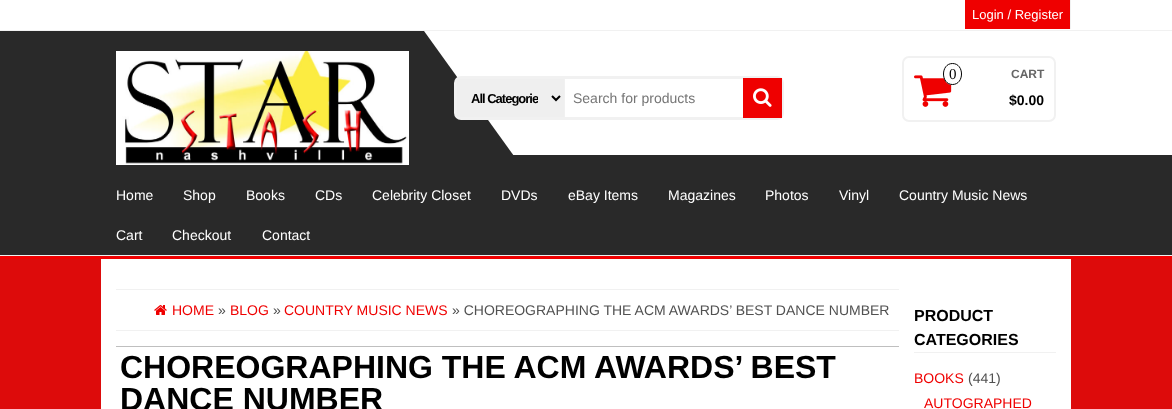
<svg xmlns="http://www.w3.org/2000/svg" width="1172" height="409">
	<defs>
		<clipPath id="clip1"><rect x="471" y="90" width="67" height="17" /></clipPath>
	</defs>
	<rect width="100%" height="100%" fill="#DD0B0B" />
	<rect x="0" y="256" width="1172" height="3" fill="#EF0000" />
	<rect x="0" y="0" width="1172" height="30" fill="#FFFFFF" />
	<rect x="0" y="30" width="1172" height="1" fill="#F1F1F1" />
	<rect x="965" y="0" width="105" height="29" fill="#EF0000" />
	<text x="972" y="19" font-family="Liberation Sans" font-size="13" fill="#FFFFFF">Login / Register</text>
	<rect x="1070" y="0" width="1" height="29" fill="#F1F1F1" />
	<rect x="0" y="31" width="1172" height="224" fill="#292929" />
	<rect x="0" y="255" width="1172" height="1" fill="#F1F1F1" />
	<image x="116" y="51" width="293" height="114" href="assets/img1.png" />
	<rect x="424" y="31" width="748" height="124" fill="#FFFFFF" />
	<path d="M424 156V31L514 156Z" fill="#292929" />
	<rect x="455" y="77" width="328" height="42" rx="6" fill="none" stroke="#F1F1F1" stroke-width="2" />
	<rect x="456.5" y="78.5" width="108" height="39" fill="#EFEFEF" stroke="#F1F1F1" />
	<path d="M552 96L556 100L560 96" fill="none" stroke="#000000" stroke-width="2" />
	<g clip-path="url(#clip1)">
		<text x="471" y="103" font-family="Liberation Sans" font-size="13" font-weight="700" letter-spacing="-1" fill="#000000">All Categorie</text>
	</g>
	<rect x="564.5" y="78.5" width="216" height="39" fill="none" stroke="#F1F1F1" />
	<text x="573" y="103" font-family="Liberation Sans" font-size="14" fill="#757575">Search for products</text>
	<rect x="743" y="78" width="39" height="40" fill="#EF0000" />
	<image x="753" y="88" width="19" height="19" href="assets/img2.png" />
	<rect x="903" y="57" width="152" height="64" rx="6" fill="none" stroke="#F1F1F1" stroke-width="2" />
	<image x="914" y="75" width="38" height="32" href="assets/img3.png" />
	<ellipse cx="952.5" cy="74" rx="9.5" ry="11" fill="#FFFFFF" />
	<path d="M952.5 63.5C964.5 63.5 964.5 84.5 952.5 84.5C940.5 84.5 940.5 63.5 952.5 63.5Z" fill="none" stroke="#000000" />
	<text x="949" y="79" font-family="Liberation Serif" font-size="15" fill="#000000">0</text>
	<text x="1011" y="78" font-family="Liberation Sans" font-size="12" font-weight="700" fill="#666666">CART</text>
	<text x="1009" y="105" font-family="Liberation Sans" font-size="14" font-weight="700" fill="#000000">$0.00</text>
	<g font-family="Liberation Sans" font-size="14" fill="#FFFFFF">
		<text x="116" y="200">Home</text>
		<text x="183" y="200">Shop</text>
		<text x="246" y="200">Books</text>
		<text x="315" y="200">CDs</text>
		<text x="372" y="200">Celebrity Closet</text>
		<text x="501" y="200">DVDs</text>
		<text x="568" y="200">eBay Items</text>
		<text x="668" y="200">Magazines</text>
		<text x="765" y="200">Photos</text>
		<text x="839" y="200">Vinyl</text>
		<text x="899" y="200">Country Music News</text>
		<text x="116" y="240">Cart</text>
		<text x="172" y="240">Checkout</text>
		<text x="262" y="240">Contact</text>
	</g>
	<rect x="101" y="259" width="970" height="150" fill="#FFFFFF" />
	<rect x="116" y="289" width="783" height="1" fill="#F1F1F1" />
	<rect x="116" y="330" width="783" height="1" fill="#F1F1F1" />
	<image x="154" y="305" width="13" height="10" href="assets/img4.png" />
	<text x="172" y="315" font-family="Liberation Sans" font-size="14" fill="#EF0000">HOME</text>
	<text x="218" y="315" font-family="Liberation Sans" font-size="14" fill="#515151">»</text>
	<text x="230" y="315" font-family="Liberation Sans" font-size="14" fill="#EF0000">BLOG</text>
	<text x="273" y="315" font-family="Liberation Sans" font-size="14" fill="#515151">»</text>
	<text x="284" y="315" font-family="Liberation Sans" font-size="14" fill="#EF0000">COUNTRY MUSIC NEWS</text>
	<text x="452" y="315" font-family="Liberation Sans" font-size="14" fill="#515151">» CHOREOGRAPHING THE ACM AWARDS’ BEST DANCE NUMBER</text>
	<rect x="116" y="346" width="783" height="1" fill="#BFBFBF" />
	<g font-family="Liberation Sans" font-size="32" font-weight="700" fill="#000000">
		<text x="120" y="378">CHOREOGRAPHING THE ACM AWARDS’ BEST</text>
		<text x="120" y="410">DANCE NUMBER</text>
	</g>
	<rect x="914" y="352" width="142" height="1" fill="#F1F1F1" />
	<g font-family="Liberation Sans" font-size="16" font-weight="700" fill="#000000">
		<text x="914" y="321">PRODUCT</text>
		<text x="914" y="345">CATEGORIES</text>
	</g>
	<text x="914" y="383" font-family="Liberation Sans" font-size="14" fill="#EF0000">BOOKS</text>
	<text x="968" y="383" font-family="Liberation Sans" font-size="14" fill="#515151">(441)</text>
	<text x="924" y="408" font-family="Liberation Sans" font-size="14" fill="#EF0000">AUTOGRAPHED</text>
</svg>
